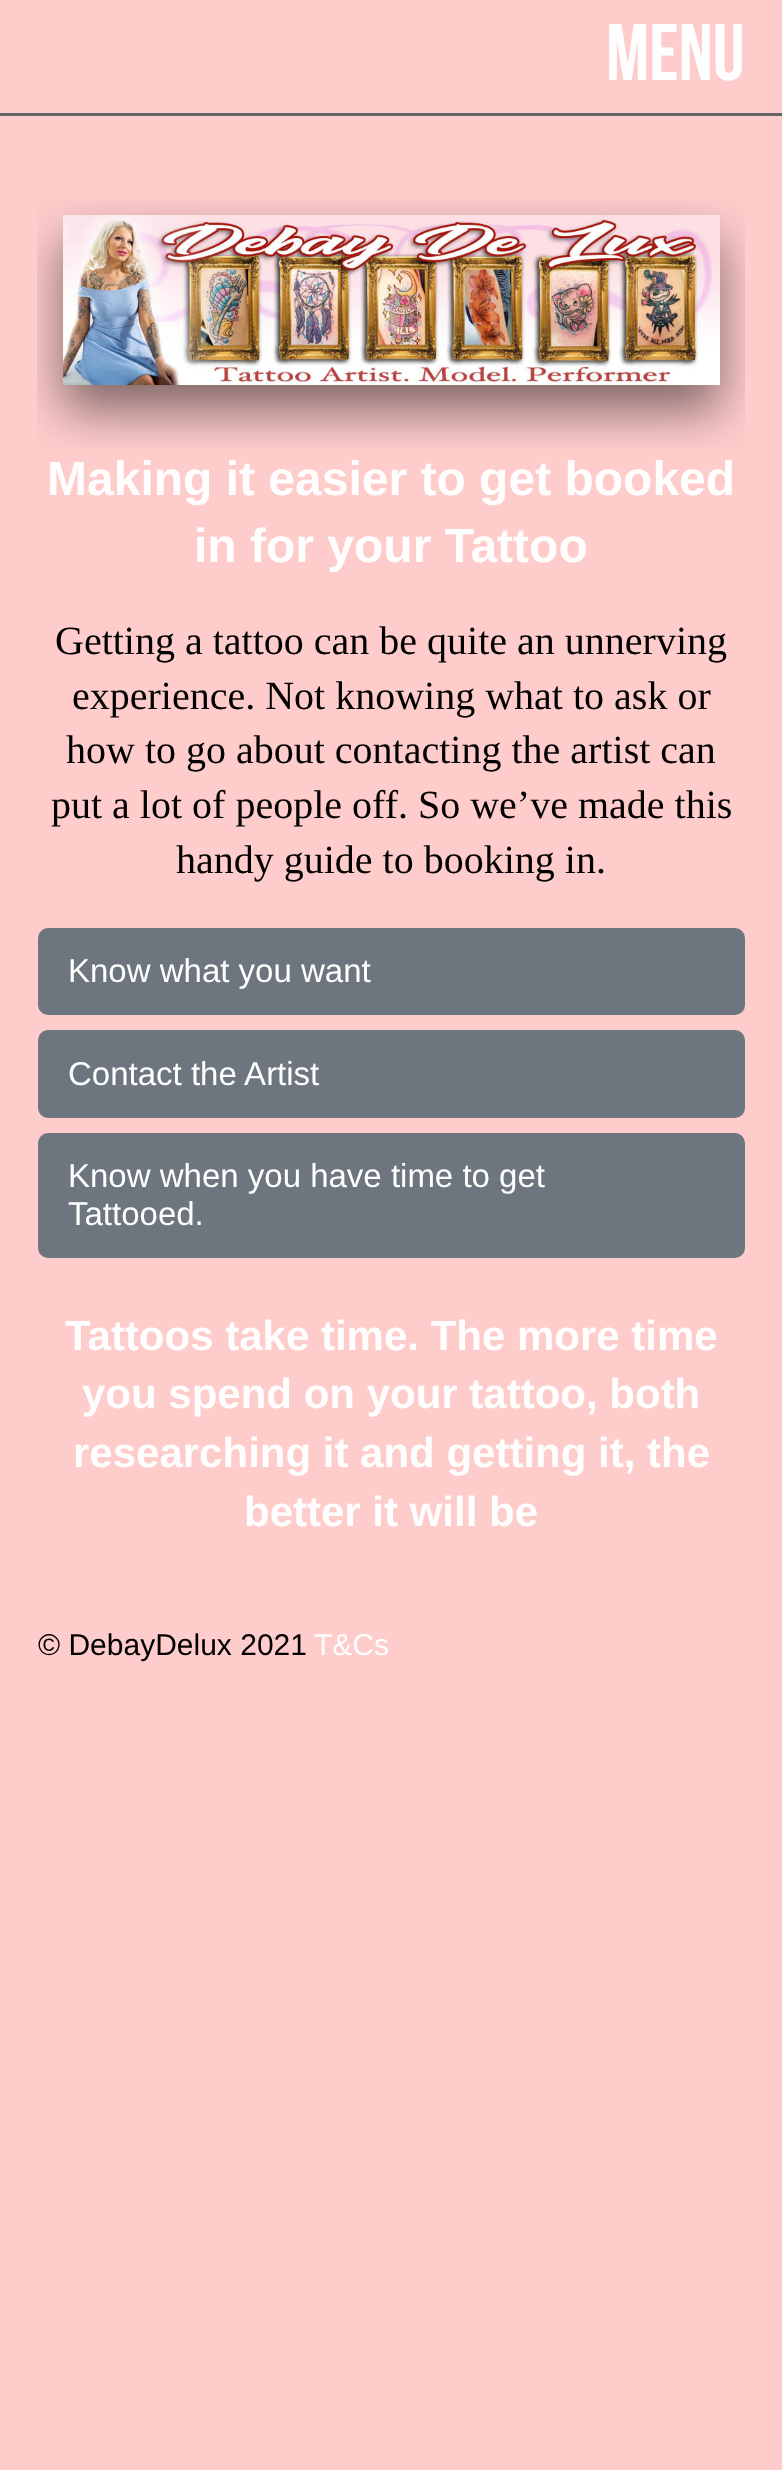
<svg xmlns="http://www.w3.org/2000/svg" width="782" height="2470">
	<rect width="100%" height="100%" fill="#FFCCCC" />
	<text x="606" y="80" font-family="Bebas Neue" font-size="80" fill="#FEFEFE">MENU</text>
	<rect x="0" y="113" width="782" height="3" fill="#666666" />
	<image x="37" y="199" width="708" height="249" href="assets/img1.png" />
	<g font-family="Liberation Sans" font-size="48" font-weight="700" fill="#FEFEFE">
		<text x="47" y="495">Making it easier to get booked</text>
		<text x="194" y="562">in for your Tattoo</text>
	</g>
	<g font-family="Liberation Serif" font-size="40" fill="#000000">
		<text x="55" y="654">Getting a tattoo can be quite an unnerving</text>
		<text x="72" y="709">experience. Not knowing what to ask or</text>
		<text x="66" y="763">how to go about contacting the artist can</text>
		<text x="51" y="818">put a lot of people off. So we’ve made this</text>
		<text x="176" y="873">handy guide to booking in.</text>
	</g>
	<rect x="38" y="928" width="707" height="87" rx="10" fill="#6D767E" />
	<text x="68" y="982" font-family="Liberation Sans" font-size="33" fill="#FEFEFE">Know what you want</text>
	<rect x="38" y="1030" width="707" height="88" rx="10" fill="#6D767E" />
	<text x="68" y="1085" font-family="Liberation Sans" font-size="33" fill="#FEFEFE">Contact the Artist</text>
	<rect x="38" y="1133" width="707" height="125" rx="10" fill="#6D767E" />
	<g font-family="Liberation Sans" font-size="33" fill="#FEFEFE">
		<text x="68" y="1187">Know when you have time to get</text>
		<text x="68" y="1225">Tattooed.</text>
	</g>
	<g font-family="Liberation Sans" font-size="42" font-weight="700" fill="#FEFEFE">
		<text x="65" y="1350">Tattoos take time. The more time</text>
		<text x="82" y="1408">you spend on your tattoo, both</text>
		<text x="73" y="1467">researching it and getting it, the</text>
		<text x="244" y="1526">better it will be</text>
	</g>
	<text x="38" y="1655" font-family="Liberation Sans" font-size="30" fill="#000000">© DebayDelux 2021</text>
	<text x="314" y="1655" font-family="Liberation Sans" font-size="30" fill="#FEFEFE">T&amp;Cs</text>
</svg>
